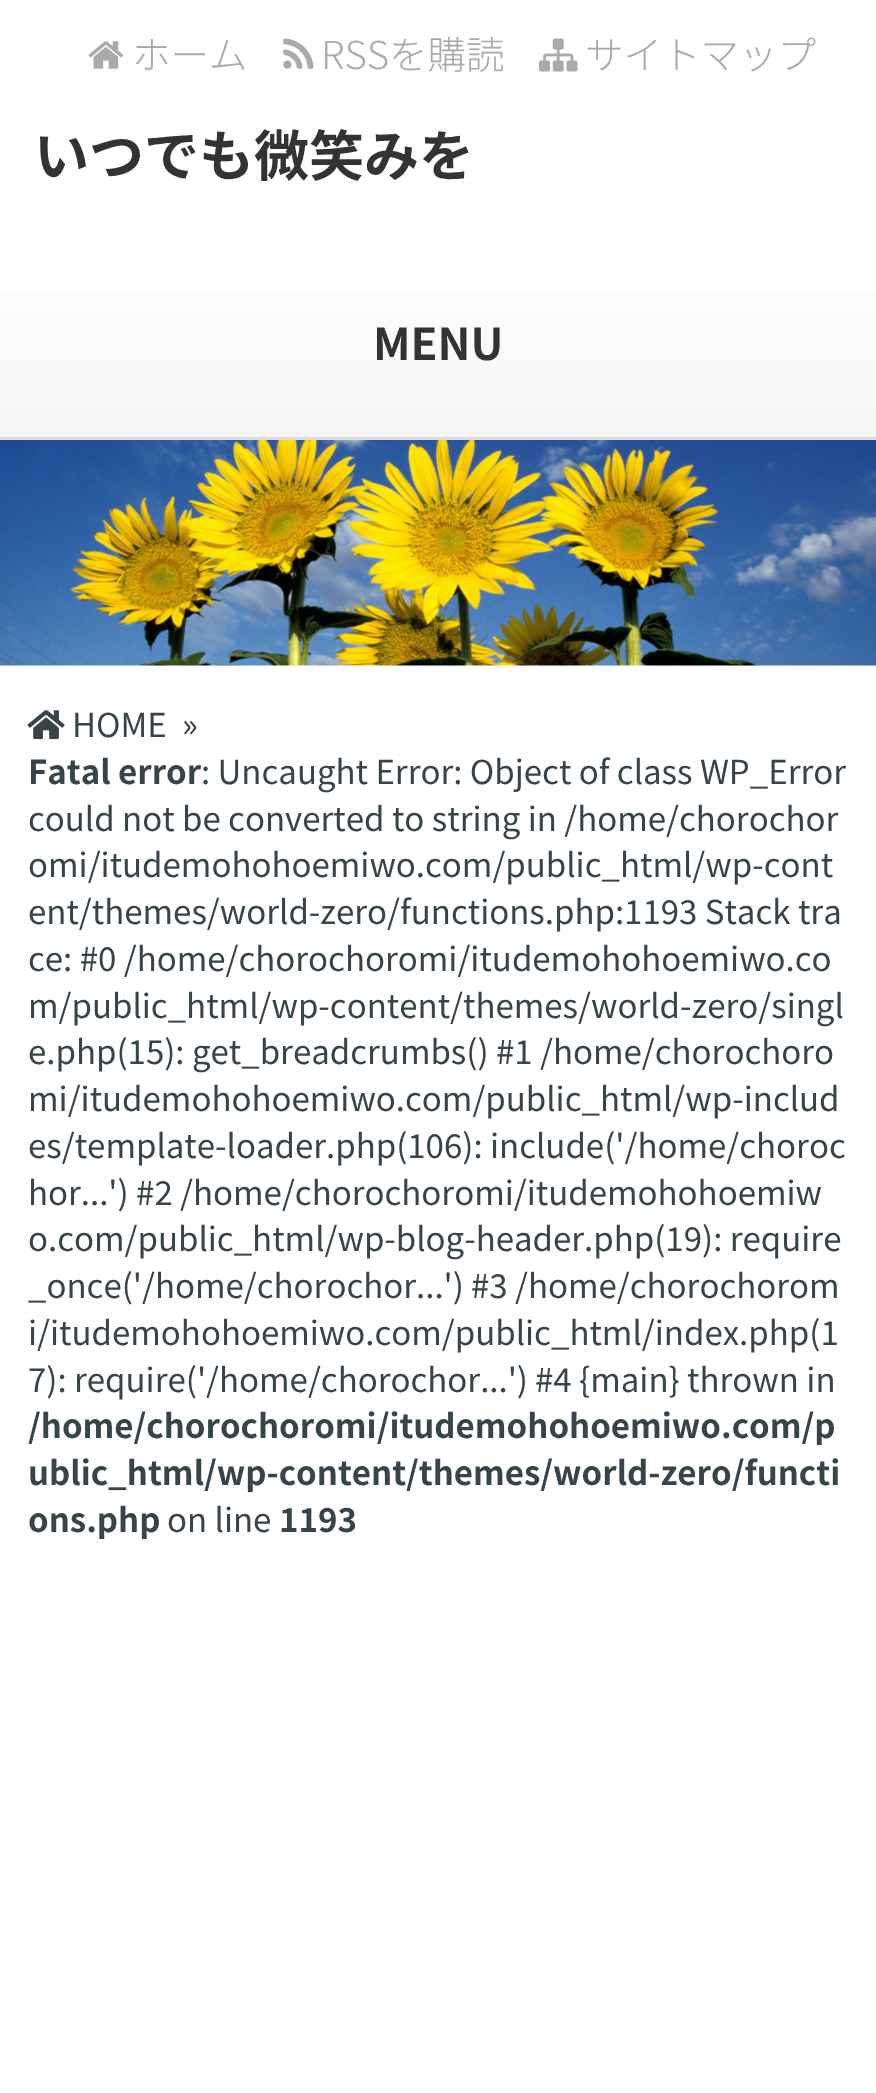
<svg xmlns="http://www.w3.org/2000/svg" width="876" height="2093">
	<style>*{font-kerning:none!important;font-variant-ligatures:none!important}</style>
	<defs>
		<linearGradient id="g1" gradientUnits="userSpaceOnUse" x1="439" y1="245" x2="439" y2="437"><stop offset="0" stop-color="#FFFFFF" /><stop offset="1" stop-color="#F5F5F5" /></linearGradient>
	</defs>
	<rect width="100%" height="100%" fill="#FFFFFF" />
	<image x="88" y="41" width="36" height="28" href="assets/img1.png" />
	<text x="132" y="69" font-family="Noto Sans JP" font-size="38.5" font-weight="300" fill="#AAAAAA">ホーム</text>
	<image x="283" y="38" width="31" height="31" href="assets/img2.png" />
	<text x="321" y="69" font-family="Noto Sans JP" font-size="38.5" font-weight="300" fill="#AAAAAA">RSSを購読</text>
	<image x="539" y="38" width="39" height="34" href="assets/img3.png" />
	<text x="585" y="69" font-family="Noto Sans JP" font-size="38.5" font-weight="300" fill="#AAAAAA">サイトマップ</text>
	<text x="34" y="176" font-family="Noto Sans JP" font-size="55" font-weight="700" fill="#333333">いつでも微笑みを</text>
	<rect x="0" y="293" width="876" height="144" fill="url(#g1)" />
	<rect x="0" y="437" width="876" height="3" fill="#DDDDDD" />
	<text x="373" y="360" font-family="Noto Sans JP" font-size="44" font-weight="700" fill="#333333">MENU</text>
	<image x="0" y="440" width="876" height="226" href="assets/img4.png" />
	<image x="27" y="710" width="38" height="30" href="assets/img5.png" />
	<g font-family="Noto Sans JP" font-size="33" fill="#364549">
		<text x="72" y="737">HOME</text>
		<text x="182" y="737">»</text>
	</g>
	<text x="28" y="784" font-family="Noto Sans JP" font-size="33" font-weight="700" fill="#364549">Fatal error</text>
	<g font-family="Noto Sans JP" font-size="33" fill="#364549">
		<text x="201" y="784">: Uncaught Error: Object of class WP_Error</text>
		<text x="28" y="831">could not be converted to string in /home/chorochor</text>
		<text x="28" y="877">omi/itudemohohoemiwo.com/public_html/wp-cont</text>
		<text x="28" y="924">ent/themes/world-zero/functions.php:1193 Stack tra</text>
		<text x="28" y="971">ce: #0 /home/chorochoromi/itudemohohoemiwo.co</text>
		<text x="28" y="1018">m/public_html/wp-content/themes/world-zero/singl</text>
		<text x="28" y="1064">e.php(15): get_breadcrumbs() #1 /home/chorochoro</text>
		<text x="28" y="1111">mi/itudemohohoemiwo.com/public_html/wp-includ</text>
		<text x="28" y="1158">es/template-loader.php(106): include('/home/choroc</text>
		<text x="28" y="1205">hor...') #2 /home/chorochoromi/itudemohohoemiw</text>
		<text x="28" y="1251">o.com/public_html/wp-blog-header.php(19): require</text>
		<text x="28" y="1298">_once('/home/chorochor...')</text>
		<text x="471" y="1298">#3 /home/chorochorom</text>
		<text x="28" y="1345">i/itudemohohoemiwo.com/public_html/index.php(1</text>
		<text x="28" y="1392">7): require('/home/chorochor...')</text>
		<text x="535" y="1392">#4 {main} thrown in</text>
	</g>
	<g font-family="Noto Sans JP" font-size="33" font-weight="700" fill="#364549">
		<text x="28" y="1438">/home/chorochoromi/itudemohohoemiwo.com/p</text>
		<text x="28" y="1485">ublic_html/wp-content/themes/world-zero/functi</text>
		<text x="28" y="1532">ons.php</text>
	</g>
	<text x="167" y="1532" font-family="Noto Sans JP" font-size="33" fill="#364549">on line</text>
	<text x="279" y="1532" font-family="Noto Sans JP" font-size="33" font-weight="700" fill="#364549">1193</text>
</svg>
